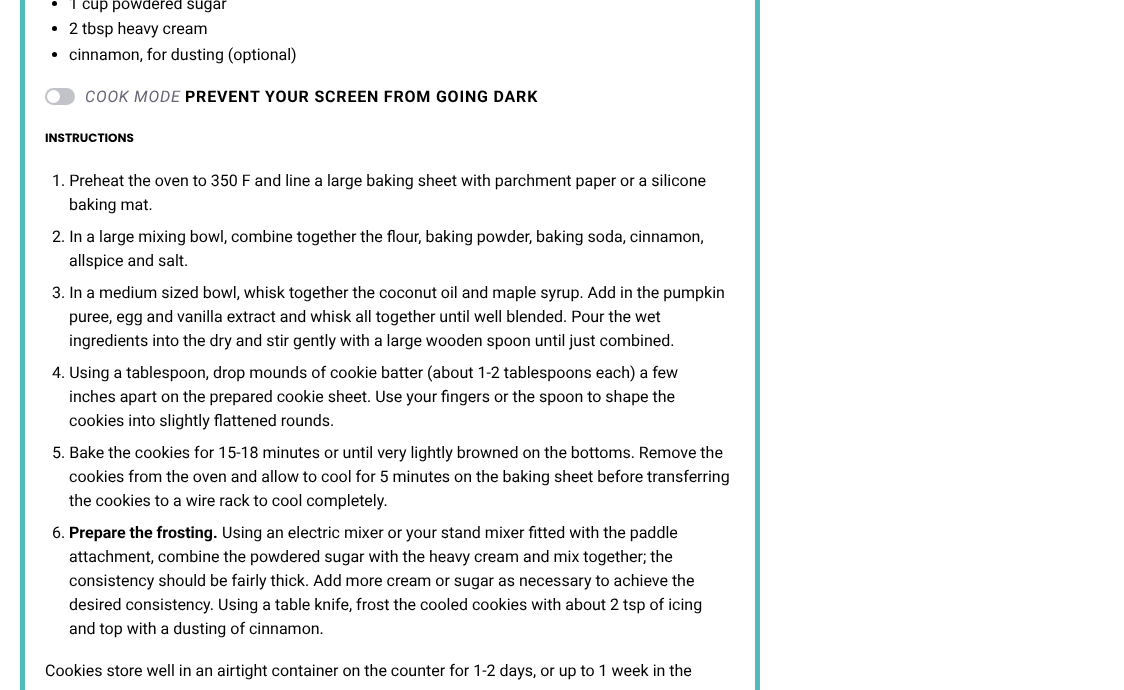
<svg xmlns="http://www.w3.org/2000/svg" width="1124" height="690">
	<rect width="100%" height="100%" fill="#FFFFFF" />
	<rect x="22.5" y="-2.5" width="735" height="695" fill="none" stroke="#51BBBB" stroke-width="5" />
	<circle cx="54.5" cy="3.5" r="2.5" fill="#000000" />
	<text x="69" y="9" font-family="Roboto" font-size="16" fill="#000000">1 cup powdered sugar</text>
	<circle cx="54.5" cy="28.5" r="2.5" fill="#000000" />
	<text x="69" y="34" font-family="Roboto" font-size="16" fill="#000000">2 tbsp heavy cream</text>
	<circle cx="54.5" cy="54.5" r="2.5" fill="#000000" />
	<text x="69" y="60" font-family="Roboto" font-size="16" fill="#000000">cinnamon, for dusting (optional)</text>
	<rect x="45" y="88" width="30" height="17" rx="8.5" fill="#C2C2C9" />
	<circle cx="53.5" cy="96.5" r="6.5" fill="#FFFFFF" />
	<text x="85" y="102" font-family="Roboto" font-size="16" font-style="italic" letter-spacing="0.8" fill="#666677">COOK MODE</text>
	<text x="185" y="102" font-family="Roboto" font-size="16" font-weight="700" letter-spacing="0.8" fill="#000000">PREVENT YOUR SCREEN FROM GOING DARK</text>
	<text x="45" y="142" font-family="Poppins" font-size="12" font-weight="700" fill="#000000">INSTRUCTIONS</text>
	<g font-family="Roboto" font-size="16" fill="#000000">
		<text x="52" y="186">1. Preheat the oven to 350 F and line a large baking sheet with parchment paper or a silicone</text>
		<text x="69" y="210">baking mat.</text>
		<text x="52" y="242">2. In a large mixing bowl, combine together the flour, baking powder, baking soda, cinnamon,</text>
		<text x="69" y="266">allspice and salt.</text>
		<text x="52" y="298">3. In a medium sized bowl, whisk together the coconut oil and maple syrup. Add in the pumpkin</text>
		<text x="69" y="322">puree, egg and vanilla extract and whisk all together until well blended. Pour the wet</text>
		<text x="69" y="346">ingredients into the dry and stir gently with a large wooden spoon until just combined.</text>
		<text x="52" y="378">4. Using a tablespoon, drop mounds of cookie batter (about 1-2 tablespoons each) a few</text>
		<text x="69" y="402">inches apart on the prepared cookie sheet. Use your fingers or the spoon to shape the</text>
		<text x="69" y="426">cookies into slightly flattened rounds.</text>
		<text x="52" y="458">5. Bake the cookies for 15-18 minutes or until very lightly browned on the bottoms. Remove the</text>
		<text x="69" y="482">cookies from the oven and allow to cool for 5 minutes on the baking sheet before transferring</text>
		<text x="69" y="506">the cookies to a wire rack to cool completely.</text>
		<text x="52" y="538">6.</text>
	</g>
	<text x="69" y="538" font-family="Roboto" font-size="16" font-weight="700" fill="#000000">Prepare the frosting.</text>
	<g font-family="Roboto" font-size="16" fill="#000000">
		<text x="222" y="538">Using an electric mixer or your stand mixer fitted with the paddle</text>
		<text x="69" y="562">attachment, combine the powdered sugar with the heavy cream and mix together; the</text>
		<text x="69" y="586">consistency should be fairly thick. Add more cream or sugar as necessary to achieve the</text>
		<text x="69" y="610">desired consistency. Using a table knife, frost the cooled cookies with about 2 tsp of icing</text>
		<text x="69" y="634">and top with a dusting of cinnamon.</text>
		<text x="45" y="676">Cookies store well in an airtight container on the counter for 1-2 days, or up to 1 week in the</text>
	</g>
</svg>
